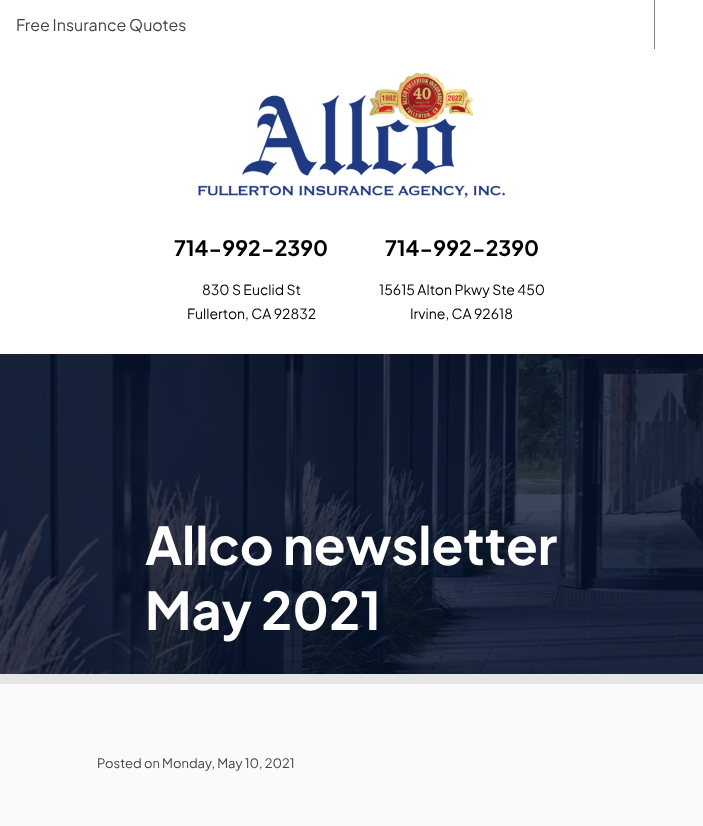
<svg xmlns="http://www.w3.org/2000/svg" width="703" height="826">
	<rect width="100%" height="100%" fill="#FAFAFA" />
	<rect x="0" y="0" width="703" height="354" fill="#FFFFFF" />
	<rect x="654" y="0" width="1" height="49" fill="#808080" />
	<text x="16" y="31" font-family="Plus Jakarta Sans" font-size="16" fill="#444444">Free Insurance Quotes</text>
	<image x="198" y="73" width="307" height="125" href="assets/img1.png" />
	<text x="174" y="256" font-family="Plus Jakarta Sans" font-size="21.25" font-weight="700" fill="#000000">714-992-2390</text>
	<g font-family="Plus Jakarta Sans" font-size="14" fill="#000000">
		<text x="202" y="295">830 S Euclid St</text>
		<text x="187" y="319">Fullerton, CA 92832</text>
	</g>
	<text x="385" y="256" font-family="Plus Jakarta Sans" font-size="21.25" font-weight="700" fill="#000000">714-992-2390</text>
	<g font-family="Plus Jakarta Sans" font-size="14" fill="#000000">
		<text x="379" y="295">15615 Alton Pkwy Ste 450</text>
		<text x="410" y="319">Irvine, CA 92618</text>
	</g>
	<image x="0" y="354" width="703" height="320" href="assets/img2.png" />
	<rect x="0" y="674" width="703" height="10" fill="#E5E5E5" />
	<g font-family="Plus Jakarta Sans" font-size="52" font-weight="700" fill="#FFFFFF">
		<text x="145" y="565">Allco newsletter</text>
		<text x="145" y="630">May 2021</text>
	</g>
	<text x="97" y="768" font-family="Plus Jakarta Sans" font-size="13" fill="#444444">Posted on Monday, May 10, 2021</text>
</svg>
